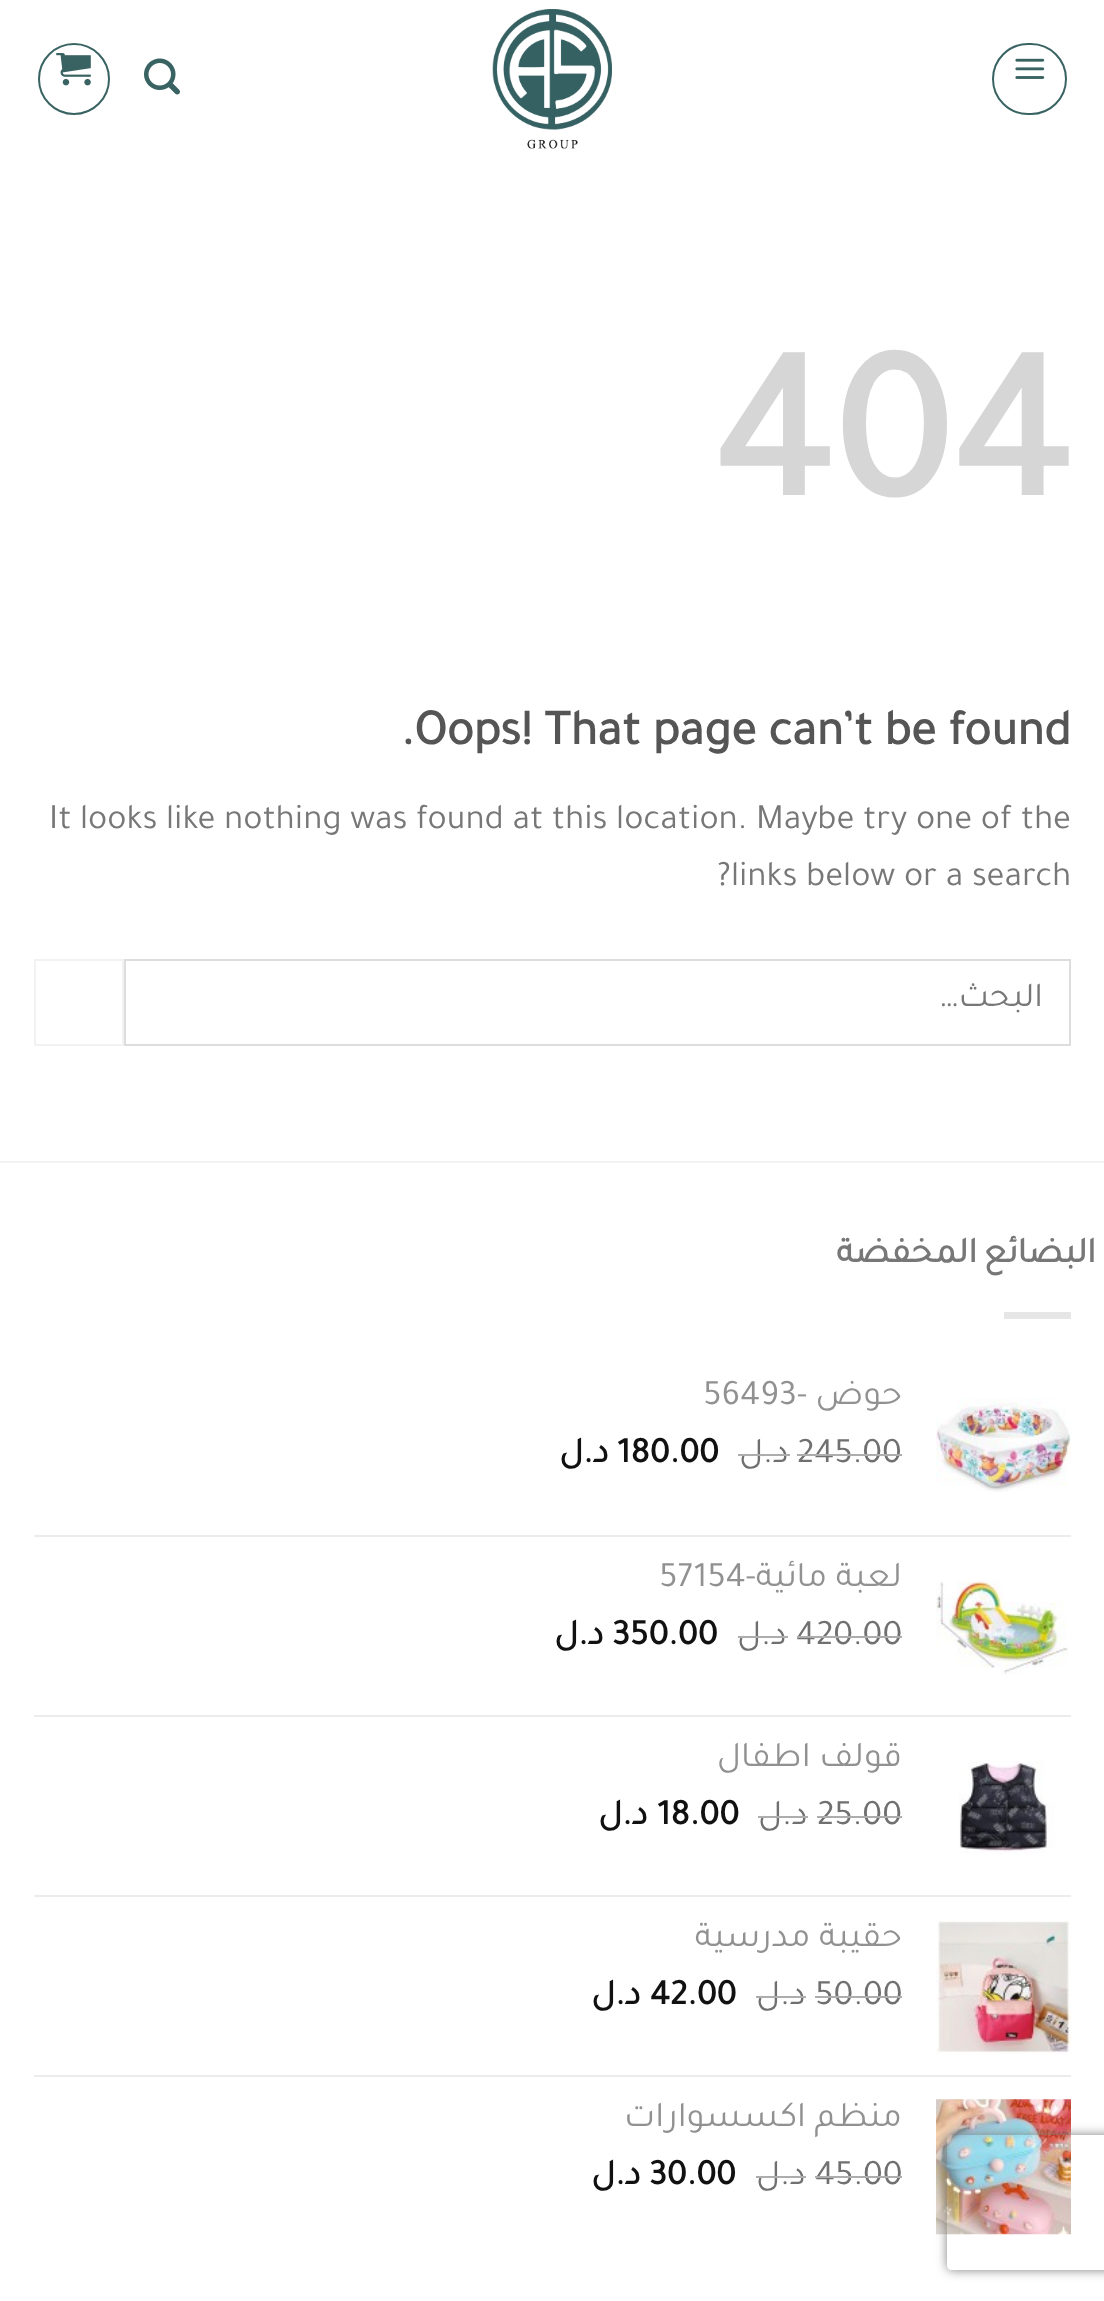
<svg xmlns="http://www.w3.org/2000/svg" width="1104" height="2301">
	<defs>
		<clipPath id="clip1"><path d="M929 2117H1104V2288H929ZM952 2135H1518C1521 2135 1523 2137 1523 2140V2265C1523 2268 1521 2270 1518 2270H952C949 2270 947 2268 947 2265V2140C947 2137 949 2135 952 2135Z" clip-rule="evenodd" /></clipPath>
	</defs>
	<rect width="100%" height="100%" fill="#FFFFFF" />
	<circle cx="74" cy="79" r="35" fill="none" stroke="#396362" stroke-width="2" />
	<image x="56" y="53" width="35" height="33" href="assets/img1.png" />
	<image x="144" y="58" width="36" height="37" href="assets/img2.png" />
	<image x="492" y="9" width="120" height="140" href="assets/img3.png" />
	<rect x="993" y="44" width="73" height="70" rx="35" fill="none" stroke="#396362" stroke-width="2" />
	<image x="1015" y="58" width="30" height="21" href="assets/img4.png" />
	<text x="713" y="495" font-family="Tajawal" font-size="216" font-weight="700" fill="#D6D6D6">404</text>
	<text x="401" y="744" font-family="Tajawal" font-size="50.4" font-weight="700" fill="#555555">.Oops! That page can’t be found</text>
	<g font-family="Tajawal" font-size="36" fill="#777777">
		<text x="49" y="828">It looks like nothing was found at this location. Maybe try one of the</text>
		<text x="717" y="885">?links below or a search</text>
	</g>
	<rect x="35" y="960" width="88" height="85" fill="none" stroke="#F2F2F2" stroke-width="2" />
	<rect x="125" y="960" width="945" height="85" fill="none" stroke="#DDDDDD" stroke-width="2" />
	<text x="1043" y="1006" font-family="Tajawal" font-size="35" direction="rtl" fill="#777777">البحث…</text>
	<rect x="0" y="1161" width="1104" height="2" fill="#F2F2F2" />
	<text x="1096" y="1262" word-spacing="-2" font-family="Tajawal" font-size="36" font-weight="700" letter-spacing="1.75" direction="rtl" fill="#777777">البضائع المخفضة</text>
	<rect x="1004" y="1312" width="67" height="7" fill="#E6E6E6" />
	<text x="703" y="1404" font-family="Tajawal" font-size="36" fill="#919191">56493</text>
	<text x="902" y="1404" font-family="Tajawal" font-size="36" direction="rtl" fill="#919191">حوض -</text>
	<image x="936" y="1398" width="135" height="94" href="assets/img5.png" />
	<text x="609" y="1462" font-family="Tajawal" font-size="36" font-weight="700" direction="rtl" fill="#111111">د.ل</text>
	<text x="617" y="1462" font-family="Tajawal" font-size="36" font-weight="700" fill="#111111">180.00</text>
	<text x="789" y="1462" font-family="Tajawal" font-size="36" direction="rtl" fill="#707070">د.ل</text>
	<rect x="738" y="1454" width="52" height="2" fill="#ADADAD" />
	<text x="797" y="1462" font-family="Tajawal" font-size="36" fill="#707070">245.00</text>
	<rect x="797" y="1454" width="105" height="2" fill="#ADADAD" />
	<rect x="34" y="1535" width="1037" height="2" fill="#ECECEC" />
	<text x="659" y="1586" font-family="Tajawal" font-size="36" fill="#919191">57154</text>
	<text x="902" y="1586" font-family="Tajawal" font-size="36" direction="rtl" fill="#919191">لعبة مائية-</text>
	<image x="936" y="1580" width="132" height="95" href="assets/img6.png" />
	<text x="604" y="1644" font-family="Tajawal" font-size="36" font-weight="700" direction="rtl" fill="#111111">د.ل</text>
	<text x="612" y="1644" font-family="Tajawal" font-size="36" font-weight="700" fill="#111111">350.00</text>
	<text x="787" y="1644" font-family="Tajawal" font-size="36" direction="rtl" fill="#707070">د.ل</text>
	<rect x="738" y="1636" width="50" height="2" fill="#ADADAD" />
	<text x="796" y="1644" font-family="Tajawal" font-size="36" fill="#707070">420.00</text>
	<rect x="797" y="1636" width="105" height="2" fill="#ADADAD" />
	<rect x="34" y="1715" width="1037" height="2" fill="#ECECEC" />
	<text x="902" y="1766" font-family="Tajawal" font-size="36" direction="rtl" fill="#919191">قولف اطفال</text>
	<image x="958" y="1761" width="97" height="93" href="assets/img7.png" />
	<text x="648" y="1824" font-family="Tajawal" font-size="36" font-weight="700" direction="rtl" fill="#111111">د.ل</text>
	<text x="657" y="1824" font-family="Tajawal" font-size="36" font-weight="700" fill="#111111">18.00</text>
	<text x="808" y="1824" font-family="Tajawal" font-size="36" direction="rtl" fill="#707070">د.ل</text>
	<rect x="758" y="1816" width="50" height="2" fill="#ADADAD" />
	<text x="817" y="1824" font-family="Tajawal" font-size="36" fill="#707070">25.00</text>
	<rect x="817" y="1816" width="85" height="2" fill="#ADADAD" />
	<rect x="34" y="1895" width="1037" height="2" fill="#ECECEC" />
	<text x="902" y="1946" font-family="Tajawal" font-size="36" direction="rtl" fill="#919191">حقيبة مدرسية</text>
	<image x="936" y="1920" width="135" height="134" href="assets/img8.png" />
	<text x="641" y="2004" font-family="Tajawal" font-size="36" font-weight="700" direction="rtl" fill="#111111">د.ل</text>
	<text x="650" y="2004" font-family="Tajawal" font-size="36" font-weight="700" fill="#111111">42.00</text>
	<text x="806" y="2004" font-family="Tajawal" font-size="36" direction="rtl" fill="#707070">د.ل</text>
	<rect x="756" y="1996" width="50" height="2" fill="#ADADAD" />
	<text x="815" y="2004" font-family="Tajawal" font-size="36" fill="#707070">50.00</text>
	<rect x="815" y="1996" width="87" height="2" fill="#ADADAD" />
	<rect x="34" y="2075" width="1037" height="2" fill="#ECECEC" />
	<text x="902" y="2126" font-family="Tajawal" font-size="36" direction="rtl" fill="#919191">منظم اكسسوارات</text>
	<image x="936" y="2099" width="135" height="136" href="assets/img9.png" />
	<text x="641" y="2184" font-family="Tajawal" font-size="36" font-weight="700" direction="rtl" fill="#111111">د.ل</text>
	<text x="649" y="2184" font-family="Tajawal" font-size="36" font-weight="700" fill="#111111">30.00</text>
	<text x="806" y="2184" font-family="Tajawal" font-size="36" direction="rtl" fill="#707070">د.ل</text>
	<rect x="756" y="2176" width="50" height="2" fill="#ADADAD" />
	<text x="815" y="2184" font-family="Tajawal" font-size="36" fill="#707070">45.00</text>
	<rect x="815" y="2176" width="87" height="2" fill="#ADADAD" />
	<g clip-path="url(#clip1)">
		<rect x="947" y="2135" width="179" height="135" rx="5" fill="#808080" filter="blur(5.5px)" />
	</g>
</svg>
